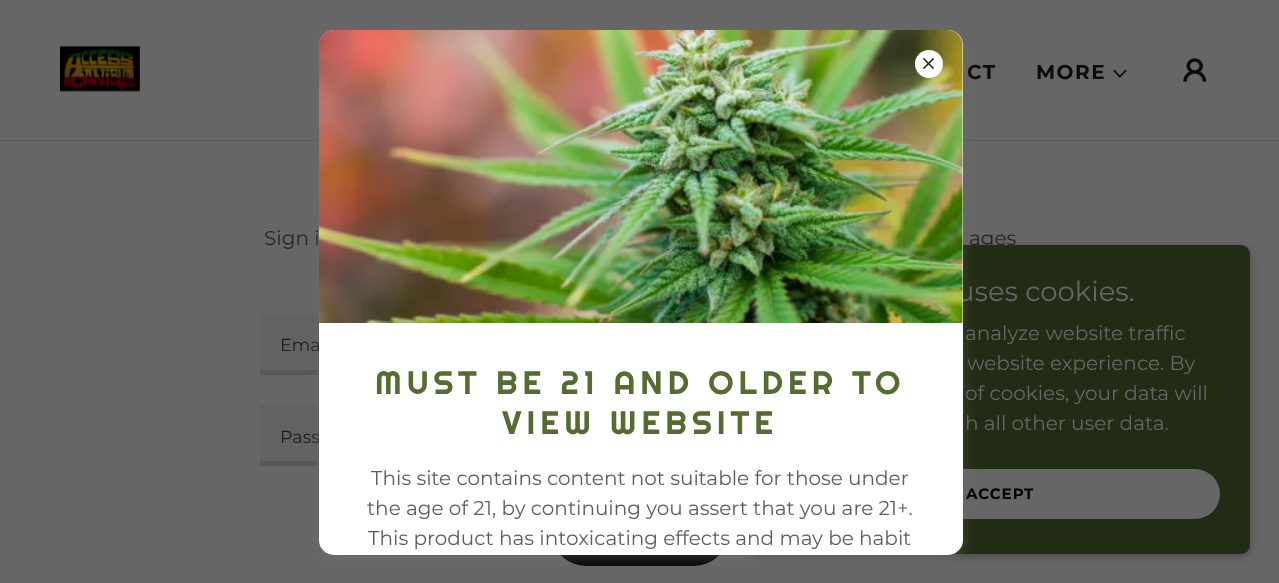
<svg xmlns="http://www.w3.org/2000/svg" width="1279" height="583">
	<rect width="100%" height="100%" fill="#666666" />
	<image x="60" y="45" width="80" height="47" href="assets/img1.png" />
	<g font-family="Montserrat" font-size="20" font-weight="700" letter-spacing="1.5" fill="#0B0B0B">
		<text x="967" y="79">CT</text>
		<text x="1036" y="79">MORE</text>
	</g>
	<image x="1113" y="69" width="14" height="9" href="assets/img2.png" />
	<image x="1183" y="58" width="24" height="24" href="assets/img3.png" />
	<rect x="0" y="140" width="1279" height="1" fill="#5A5A5A" />
	<g font-family="Montserrat" font-size="20" fill="#262626">
		<text x="264" y="245">Sign i</text>
		<text x="969" y="245">ages</text>
	</g>
	<rect x="260" y="314" width="59" height="56" fill="#626262" />
	<rect x="260" y="370" width="59" height="5" fill="#575757" />
	<text x="280" y="351" font-family="Montserrat" font-size="17.5" fill="#1C1C1C">Ema</text>
	<rect x="260" y="405" width="59" height="56" fill="#626262" />
	<rect x="260" y="461" width="59" height="5" fill="#575757" />
	<text x="280" y="443" font-family="Montserrat" font-size="17.5" fill="#1C1C1C">Pass</text>
	<rect x="551" y="496" width="178" height="70" rx="35" fill="#000000" />
	<rect x="750" y="248" width="500" height="308" rx="9" fill="#000000" fill-opacity="0.3" filter="blur(4px)" />
	<rect x="750" y="245" width="500" height="309" rx="9" fill="#222B13" />
	<text x="956" y="301" font-family="Montserrat" font-size="27.5" fill="#666666">uses cookies.</text>
	<g font-family="Montserrat" font-size="20" fill="#666666">
		<text x="965" y="340">analyze website traffic</text>
		<text x="967" y="370">website experience. By</text>
		<text x="965" y="400">of cookies, your data will</text>
		<text x="965" y="430">h all other user data.</text>
	</g>
	<rect x="780" y="469" width="440" height="50" rx="25" fill="#666666" />
	<text x="966" y="499" font-family="Montserrat" font-size="15" font-weight="700" letter-spacing="1" fill="#000000">ACCEPT</text>
	<rect x="319" y="35" width="644" height="525" rx="15" fill="#757575" fill-opacity="0.4" filter="blur(7.5px)" />
	<rect x="319" y="30" width="644" height="525" rx="15" fill="#FFFFFF" />
	<image x="319" y="30" width="644" height="293" href="assets/img5.png" />
	<circle cx="929" cy="64" r="14" fill="#FFFFFF" />
	<image x="923" y="58" width="12" height="12" href="assets/img4.png" />
	<g font-family="Righteous" font-size="32.5" letter-spacing="5" fill="#556B2F">
		<text x="375" y="394">MUST BE 21 AND OLDER TO</text>
		<text x="502" y="434">VIEW WEBSITE</text>
	</g>
	<g font-family="Montserrat" font-size="20" fill="#5E5E5E">
		<text x="371" y="485">This site contains content not suitable for those under</text>
		<text x="367" y="515">the age of 21, by continuing you assert that you are 21+.</text>
		<text x="368" y="545">This product has intoxicating effects and may be habit</text>
	</g>
</svg>
